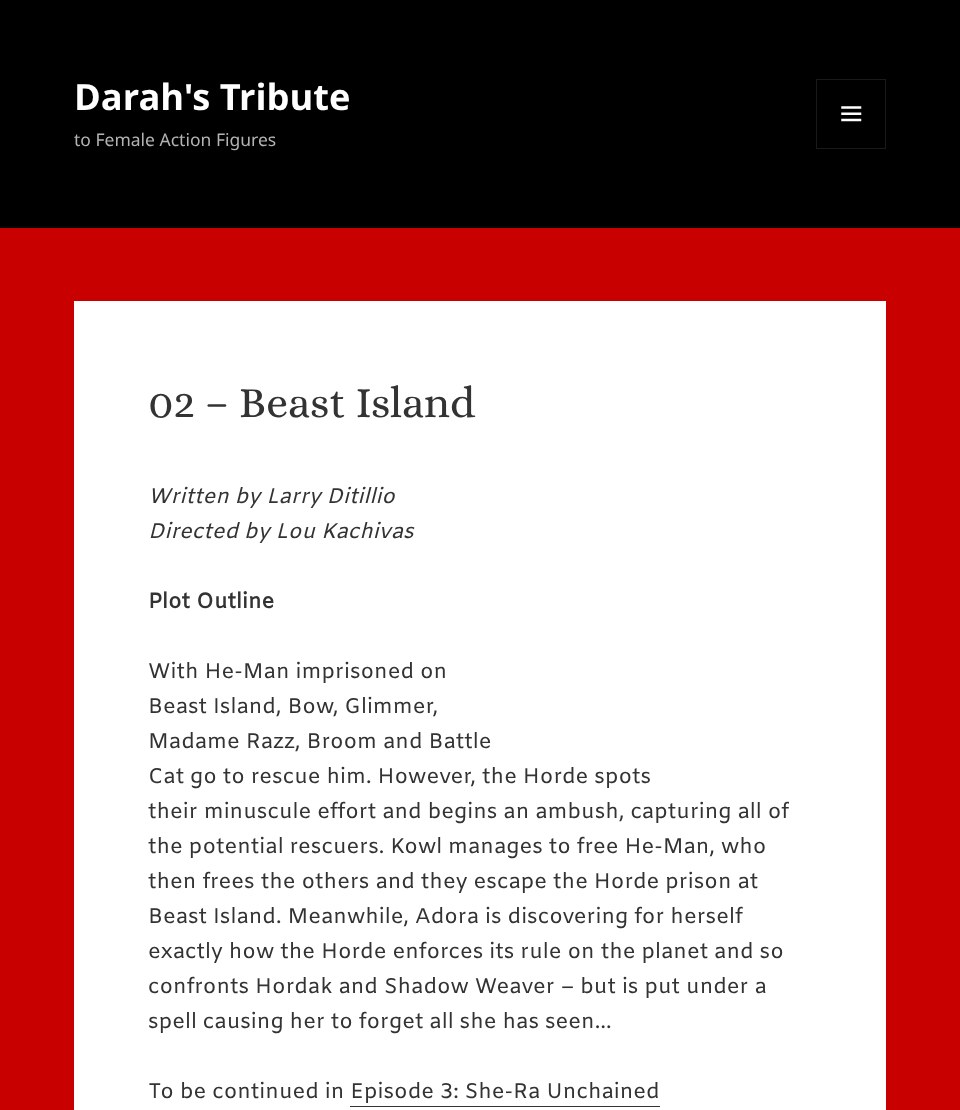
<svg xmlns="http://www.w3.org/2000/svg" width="960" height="1110">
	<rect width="100%" height="100%" fill="#C90000" />
	<rect x="0" y="0" width="960" height="228" fill="#000000" />
	<rect x="0" y="226" width="960" height="1" fill="#050505" />
	<text x="74" y="110" font-family="Noto Sans" font-size="36.25" font-weight="700" fill="#FFFFFF">Darah's Tribute</text>
	<rect x="816.5" y="79.5" width="69" height="69" fill="none" stroke="#1A1A1A" />
	<image x="841" y="106" width="21" height="16" href="assets/img1.png" />
	<text x="74" y="146" font-family="Noto Sans" font-size="17.5" fill="#B3B3B3">to Female Action Figures</text>
	<rect x="74" y="301" width="812" height="809" fill="#FFFFFF" />
	<text x="148" y="417" font-family="Alice" font-size="43.75" fill="#333333">02 – Beast Island</text>
	<g font-family="Amiko" font-size="21.25" font-style="italic" fill="#333333">
		<text x="148" y="503">Written by Larry Ditillio</text>
		<text x="148" y="538">Directed by Lou Kachivas</text>
	</g>
	<text x="148" y="608" font-family="Amiko" font-size="21.25" font-weight="700" fill="#333333">Plot Outline</text>
	<g font-family="Amiko" font-size="21.25" fill="#333333">
		<text x="148" y="678">With He-Man imprisoned on</text>
		<text x="148" y="713">Beast Island, Bow, Glimmer,</text>
		<text x="148" y="748">Madame Razz, Broom and Battle</text>
		<text x="148" y="783">Cat go to rescue him. However, the Horde spots</text>
		<text x="148" y="818">their minuscule effort and begins an ambush, capturing all of</text>
		<text x="148" y="853">the potential rescuers. Kowl manages to free He-Man, who</text>
		<text x="148" y="888">then frees the others and they escape the Horde prison at</text>
		<text x="148" y="923">Beast Island. Meanwhile, Adora is discovering for herself</text>
		<text x="148" y="958">exactly how the Horde enforces its rule on the planet and so</text>
		<text x="148" y="993">confronts Hordak and Shadow Weaver – but is put under a</text>
		<text x="148" y="1028">spell causing her to forget all she has seen…</text>
		<text x="148" y="1098">To be continued in Episode 3: She-Ra Unchained</text>
	</g>
	<rect x="350" y="1106" width="310" height="1" fill="#333333" />
</svg>
